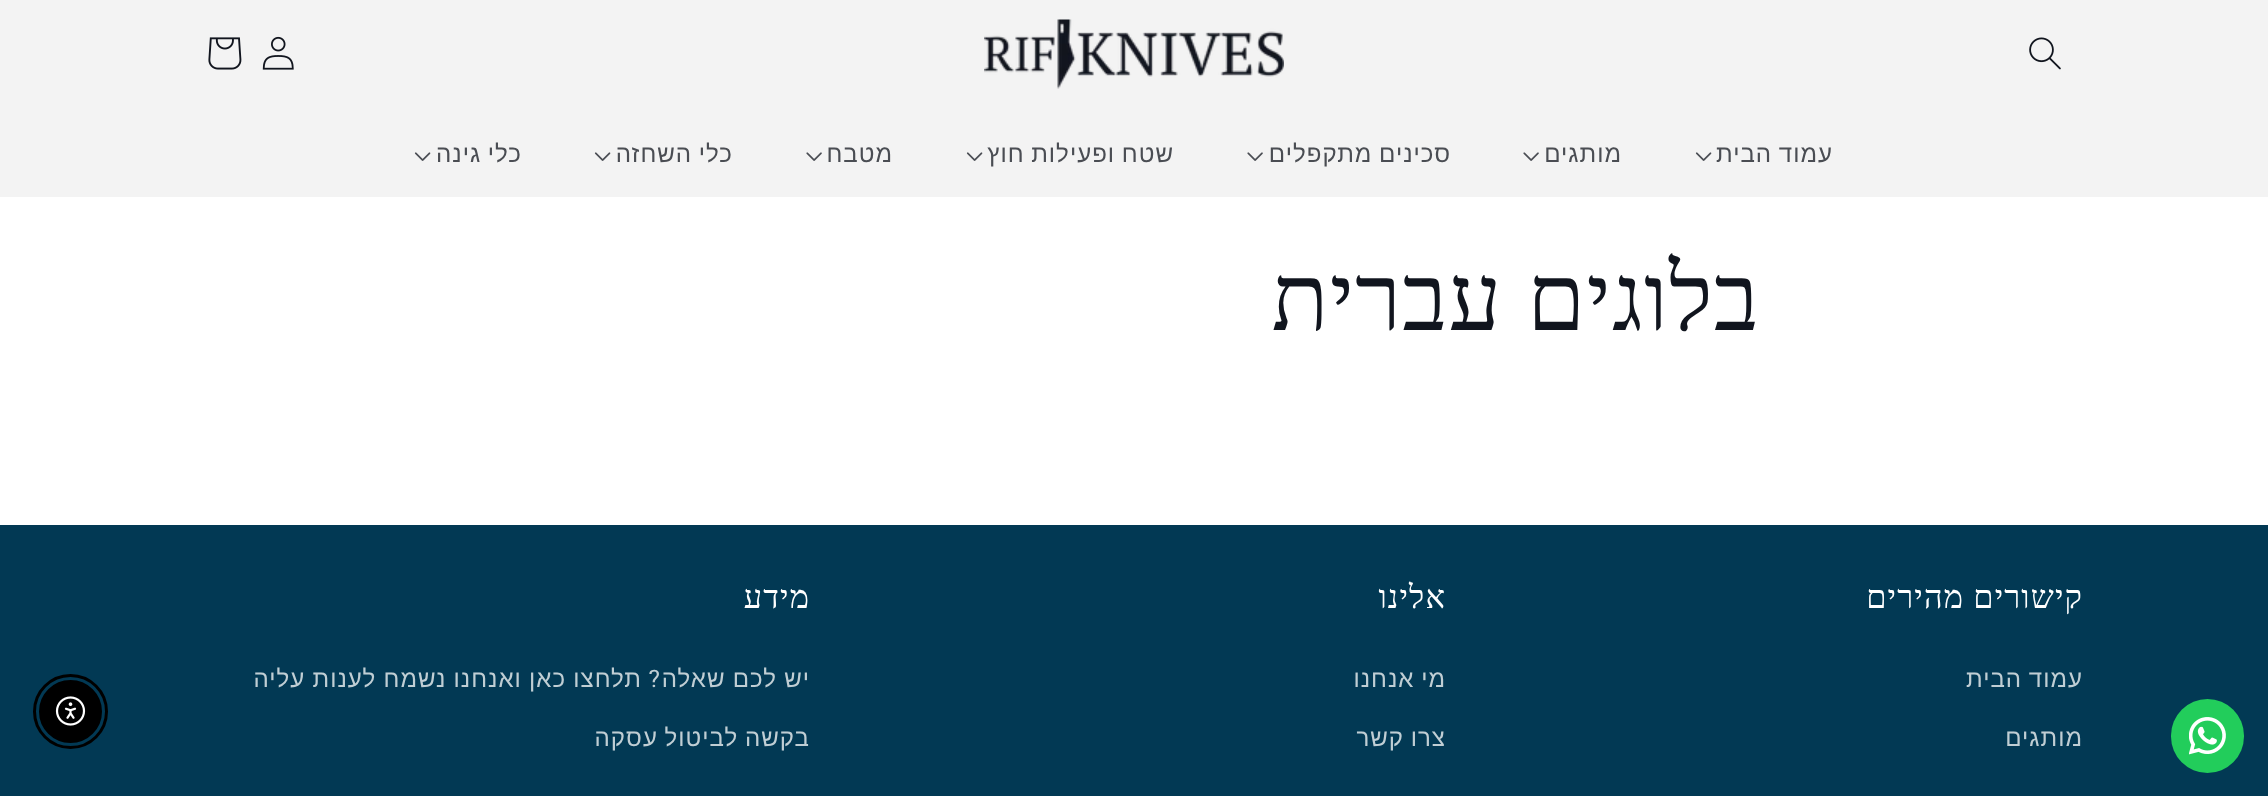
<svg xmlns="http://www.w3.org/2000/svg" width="2268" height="796">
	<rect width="100%" height="100%" fill="#FFFFFF" />
	<rect x="0" y="0" width="2268" height="197" fill="#F3F3F3" />
	<image x="2029" y="37" width="32" height="33" href="assets/img1.png" />
	<image x="984" y="19" width="300" height="70" href="assets/img2.png" />
	<image x="262" y="36" width="32" height="34" href="assets/img3.png" />
	<image x="208" y="37" width="34" height="33" href="assets/img4.png" />
	<text x="1833" y="162" word-spacing="-1" font-family="Liberation Sans" font-size="24.1" letter-spacing="1" direction="rtl" fill="#4A4D53">עמוד הבית</text>
	<image x="1695" y="152" width="17" height="9" href="assets/img5.png" />
	<text x="1622" y="162" font-family="Liberation Sans" font-size="24.1" letter-spacing="1" direction="rtl" fill="#4A4D53">מותגים</text>
	<image x="1523" y="152" width="16" height="9" href="assets/img6.png" />
	<text x="1451" y="162" word-spacing="-1" font-family="Liberation Sans" font-size="24.1" letter-spacing="1" direction="rtl" fill="#4A4D53">סכינים מתקפלים</text>
	<image x="1247" y="152" width="16" height="9" href="assets/img6.png" />
	<text x="1174" y="162" word-spacing="-1" font-family="Liberation Sans" font-size="24.1" letter-spacing="1" direction="rtl" fill="#4A4D53">שטח ופעילות חוץ</text>
	<image x="966" y="152" width="17" height="9" href="assets/img5.png" />
	<text x="893" y="162" font-family="Liberation Sans" font-size="24.1" letter-spacing="1" direction="rtl" fill="#4A4D53">מטבח</text>
	<image x="806" y="152" width="16" height="9" href="assets/img6.png" />
	<text x="733" y="162" word-spacing="-1" font-family="Liberation Sans" font-size="24.1" letter-spacing="1" direction="rtl" fill="#4A4D53">כלי השחזה</text>
	<image x="594" y="152" width="17" height="9" href="assets/img5.png" />
	<text x="522" y="162" word-spacing="-1" font-family="Liberation Sans" font-size="24.1" letter-spacing="1" direction="rtl" fill="#4A4D53">כלי גינה</text>
	<image x="414" y="152" width="17" height="9" href="assets/img5.png" />
	<text x="1760" y="330" font-family="Liberation Serif" font-size="93.5" letter-spacing="1.1" direction="rtl" fill="#11151E">בלוגים עברית</text>
	<rect x="0" y="525" width="2268" height="271" fill="#023954" />
	<rect x="2171" y="699" width="73" height="74" rx="36.5" fill="#22CD5B" />
	<image x="2189" y="717" width="37" height="38" href="assets/img7.png" />
	<text x="2083" y="608" font-family="Liberation Serif" font-size="32.5" letter-spacing="1.1" direction="rtl" fill="#FFFFFF">קישורים מהירים</text>
	<g font-family="Liberation Sans" font-size="24.1" letter-spacing="1" direction="rtl" fill="#C0CED4">
		<text x="2083" y="687" word-spacing="-1">עמוד הבית</text>
		<text x="2083" y="746">מותגים</text>
	</g>
	<text x="1446" y="608" font-family="Liberation Serif" font-size="32.5" letter-spacing="1.1" direction="rtl" fill="#FFFFFF">אלינו</text>
	<g font-family="Liberation Sans" font-size="24.1" letter-spacing="1" direction="rtl" fill="#C0CED4">
		<text x="1446" y="687" word-spacing="-1">מי אנחנו</text>
		<text x="1446" y="746" word-spacing="-1">צרו קשר</text>
	</g>
	<text x="810" y="608" font-family="Liberation Serif" font-size="32.5" letter-spacing="1.1" direction="rtl" fill="#FFFFFF">מידע</text>
	<text x="810" y="687" word-spacing="-0.5" font-family="Liberation Sans" font-size="24.1" letter-spacing="1" direction="rtl" fill="#C0CED4">יש לכם שאלה</text>
	<text x="661" y="687" font-family="Roboto" font-size="24.1" letter-spacing="1" direction="rtl" fill="#C0CED4">?</text>
	<g font-family="Liberation Sans" font-size="24.1" letter-spacing="1" direction="rtl" fill="#C0CED4">
		<text x="642" y="687" word-spacing="-0.5">תלחצו כאן ואנחנו נשמח לענות עליה</text>
		<text x="810" y="746" word-spacing="-1">בקשה לביטול עסקה</text>
	</g>
	<circle cx="70.5" cy="711.5" r="36" fill="none" stroke="#000000" stroke-width="3" />
	<circle cx="70.5" cy="711.5" r="30.5" fill="#000000" stroke="#000000" stroke-width="2" />
	<image x="55" y="696" width="31" height="30" href="assets/img8.png" />
</svg>
